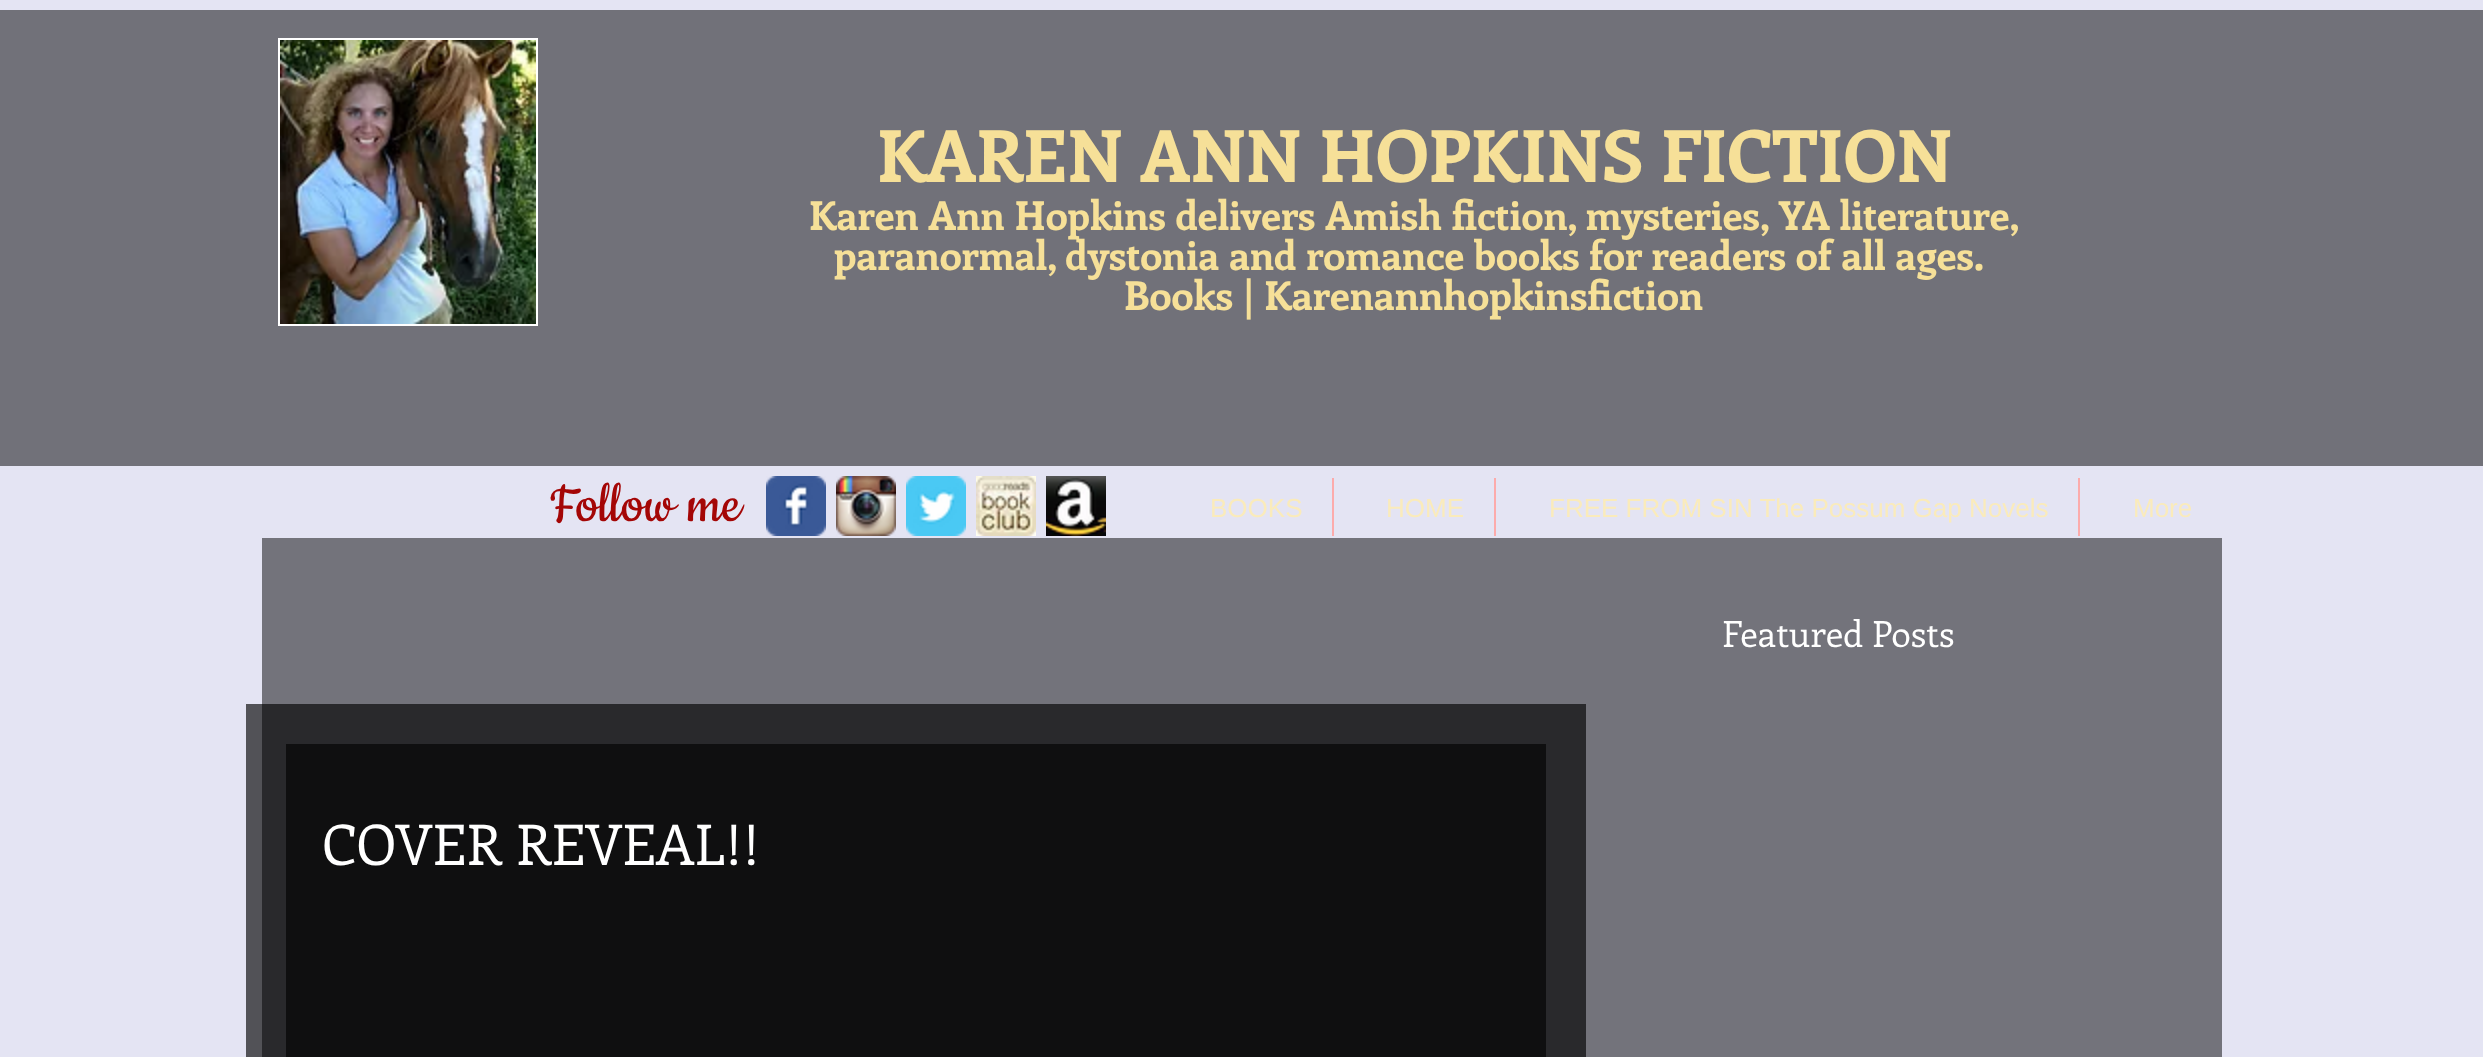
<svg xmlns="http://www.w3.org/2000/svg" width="2483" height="1057">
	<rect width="100%" height="100%" fill="#E4E4F3" />
	<rect x="246" y="704" width="16" height="353" fill="#525257" />
	<rect x="0" y="10" width="2483" height="456" fill="#717179" />
	<rect x="278" y="38" width="260" height="288" fill="#FFFFFF" />
	<image x="280" y="40" width="256" height="284" href="assets/img1.png" />
	<text x="877" y="182" font-family="Enriqueta" font-size="72" font-weight="700" fill="#F6E098">KAREN ANN HOPKINS FICTION</text>
	<g font-family="Enriqueta" font-size="40" font-weight="700" fill="#F6E098">
		<text x="809" y="230">Karen Ann Hopkins delivers Amish fiction, mysteries, YA literature,</text>
		<text x="834" y="270">paranormal, dystonia and romance books for readers of all ages.</text>
		<text x="1124" y="310">Books | Karenannhopkinsfiction</text>
	</g>
	<text x="550" y="521" font-family="Cookie" font-size="64" fill="#A40606">Follow me</text>
	<image x="766" y="476" width="60" height="60" href="assets/img2.png" />
	<image x="836" y="476" width="60" height="60" href="assets/img3.png" />
	<image x="906" y="476" width="60" height="60" href="assets/img4.png" />
	<image x="976" y="476" width="60" height="60" href="assets/img5.png" />
	<image x="1046" y="476" width="60" height="60" href="assets/img6.png" />
	<text x="1210" y="517" font-family="Liberation Sans" font-size="26" fill="#FAEBBB">BOOKS</text>
	<rect x="1332" y="478" width="2" height="58" fill="#FCABAB" />
	<text x="1386" y="517" font-family="Liberation Sans" font-size="26" fill="#FAEBBB">HOME</text>
	<rect x="1494" y="478" width="2" height="58" fill="#FCABAB" />
	<text x="1549" y="517" font-family="Liberation Sans" font-size="26" fill="#FAEBBB">FREE FROM SIN The Possum Gap Novels</text>
	<rect x="2078" y="478" width="2" height="58" fill="#FCABAB" />
	<text x="2133" y="517" font-family="Liberation Sans" font-size="26" fill="#FAEBBB">More</text>
	<rect x="262" y="538" width="1960" height="519" fill="#73737B" />
	<rect x="262" y="704" width="1324" height="353" fill="#29292C" />
	<text x="1722" y="647" font-family="Enriqueta" font-size="36" fill="#FFFFFF">Featured Posts</text>
	<rect x="286" y="744" width="1260" height="313" fill="#0F0F10" />
	<text x="322" y="865" font-family="Enriqueta" font-size="56" fill="#FFFFFF">COVER REVEAL!!</text>
</svg>
